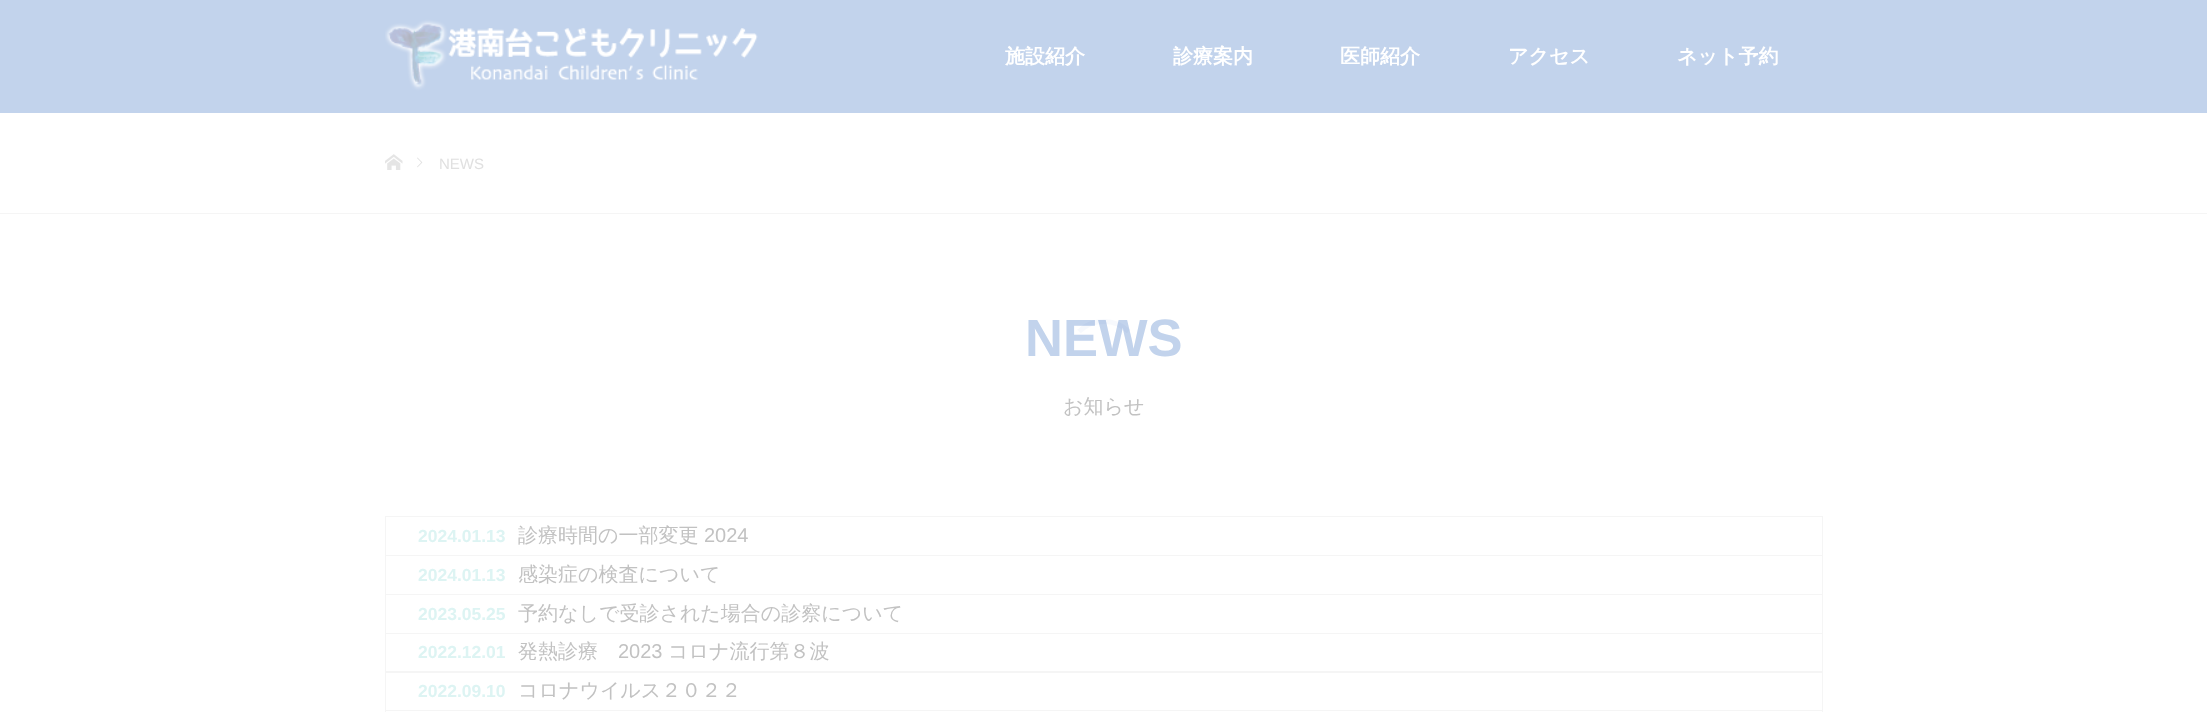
<svg xmlns="http://www.w3.org/2000/svg" width="2207" height="712">
	<rect width="100%" height="100%" fill="#FFFFFF" />
	<rect x="0" y="0" width="2207" height="113" fill="#C2D3EC" />
	<image x="385" y="19" width="373" height="72" href="assets/img1.png" />
	<g font-family="WenQuanYi Zen Hei" font-size="20" font-weight="700" fill="#FFFFFF">
		<text x="1005" y="63">施設紹介</text>
		<text x="1173" y="63">診療案内</text>
		<text x="1340" y="63">医師紹介</text>
		<text x="1508" y="63">アクセス</text>
		<text x="1677" y="63">ネット予約</text>
	</g>
	<rect x="0" y="213" width="2207" height="1" fill="#F5F5F5" />
	<image x="385" y="154" width="18" height="16" href="assets/img2.png" />
	<image x="417" y="157" width="6" height="11" href="assets/img3.png" />
	<text x="439" y="169" font-family="Liberation Sans" font-size="15" fill="#E0E0E0">NEWS</text>
	<text x="1025" y="356" font-family="Liberation Sans" font-size="52.5" font-weight="700" fill="#C2D3EC">NEWS</text>
	<text x="1063" y="413" font-family="WenQuanYi Zen Hei" font-size="20" font-weight="500" fill="#C2C2C2">お知らせ</text>
	<rect x="385.5" y="516.5" width="1437" height="39" fill="none" stroke="#F5F5F5" />
	<text x="418" y="542" font-family="Liberation Sans" font-size="17.5" font-weight="700" fill="#DDF4F3">2024.01.13</text>
	<text x="518" y="542" font-family="WenQuanYi Zen Hei" font-size="20" font-weight="500" fill="#C2C2C2">診療時間の一部変更</text>
	<text x="704" y="542" font-family="Liberation Sans" font-size="20" fill="#C2C2C2">2024</text>
	<rect x="385.5" y="555.5" width="1437" height="39" fill="none" stroke="#F5F5F5" />
	<text x="418" y="581" font-family="Liberation Sans" font-size="17.5" font-weight="700" fill="#DDF4F3">2024.01.13</text>
	<text x="518" y="581" font-family="WenQuanYi Zen Hei" font-size="20" font-weight="500" fill="#C2C2C2">感染症の検査について</text>
	<rect x="385.5" y="594.5" width="1437" height="39" fill="none" stroke="#F5F5F5" />
	<text x="418" y="620" font-family="Liberation Sans" font-size="17.5" font-weight="700" fill="#DDF4F3">2023.05.25</text>
	<text x="518" y="620" font-family="WenQuanYi Zen Hei" font-size="20" font-weight="500" fill="#C2C2C2">予約なしで受診された場合の診察について</text>
	<rect x="385.5" y="633.5" width="1437" height="39" fill="none" stroke="#F5F5F5" />
	<text x="418" y="658" font-family="Liberation Sans" font-size="17.5" font-weight="700" fill="#DDF4F3">2022.12.01</text>
	<text x="518" y="658" font-family="WenQuanYi Zen Hei" font-size="20" font-weight="500" fill="#C2C2C2">発熱診療</text>
	<text x="618" y="658" font-family="Liberation Sans" font-size="20" fill="#C2C2C2">2023</text>
	<text x="668" y="658" font-family="WenQuanYi Zen Hei" font-size="20" font-weight="500" fill="#C2C2C2">コロナ流行第８波</text>
	<rect x="385.5" y="671.5" width="1437" height="39" fill="none" stroke="#F5F5F5" />
	<text x="418" y="697" font-family="Liberation Sans" font-size="17.5" font-weight="700" fill="#DDF4F3">2022.09.10</text>
	<text x="518" y="697" font-family="WenQuanYi Zen Hei" font-size="20" font-weight="500" fill="#C2C2C2">コロナウイルス２０２２</text>
	<rect x="385.5" y="710.5" width="1437" height="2" fill="none" stroke="#F5F5F5" />
	<path d="M1079 331.5C1092.5 318 1115 318 1128.5 331.5" fill="none" stroke="#326DC0" stroke-opacity="0.04" stroke-width="5" />
</svg>
